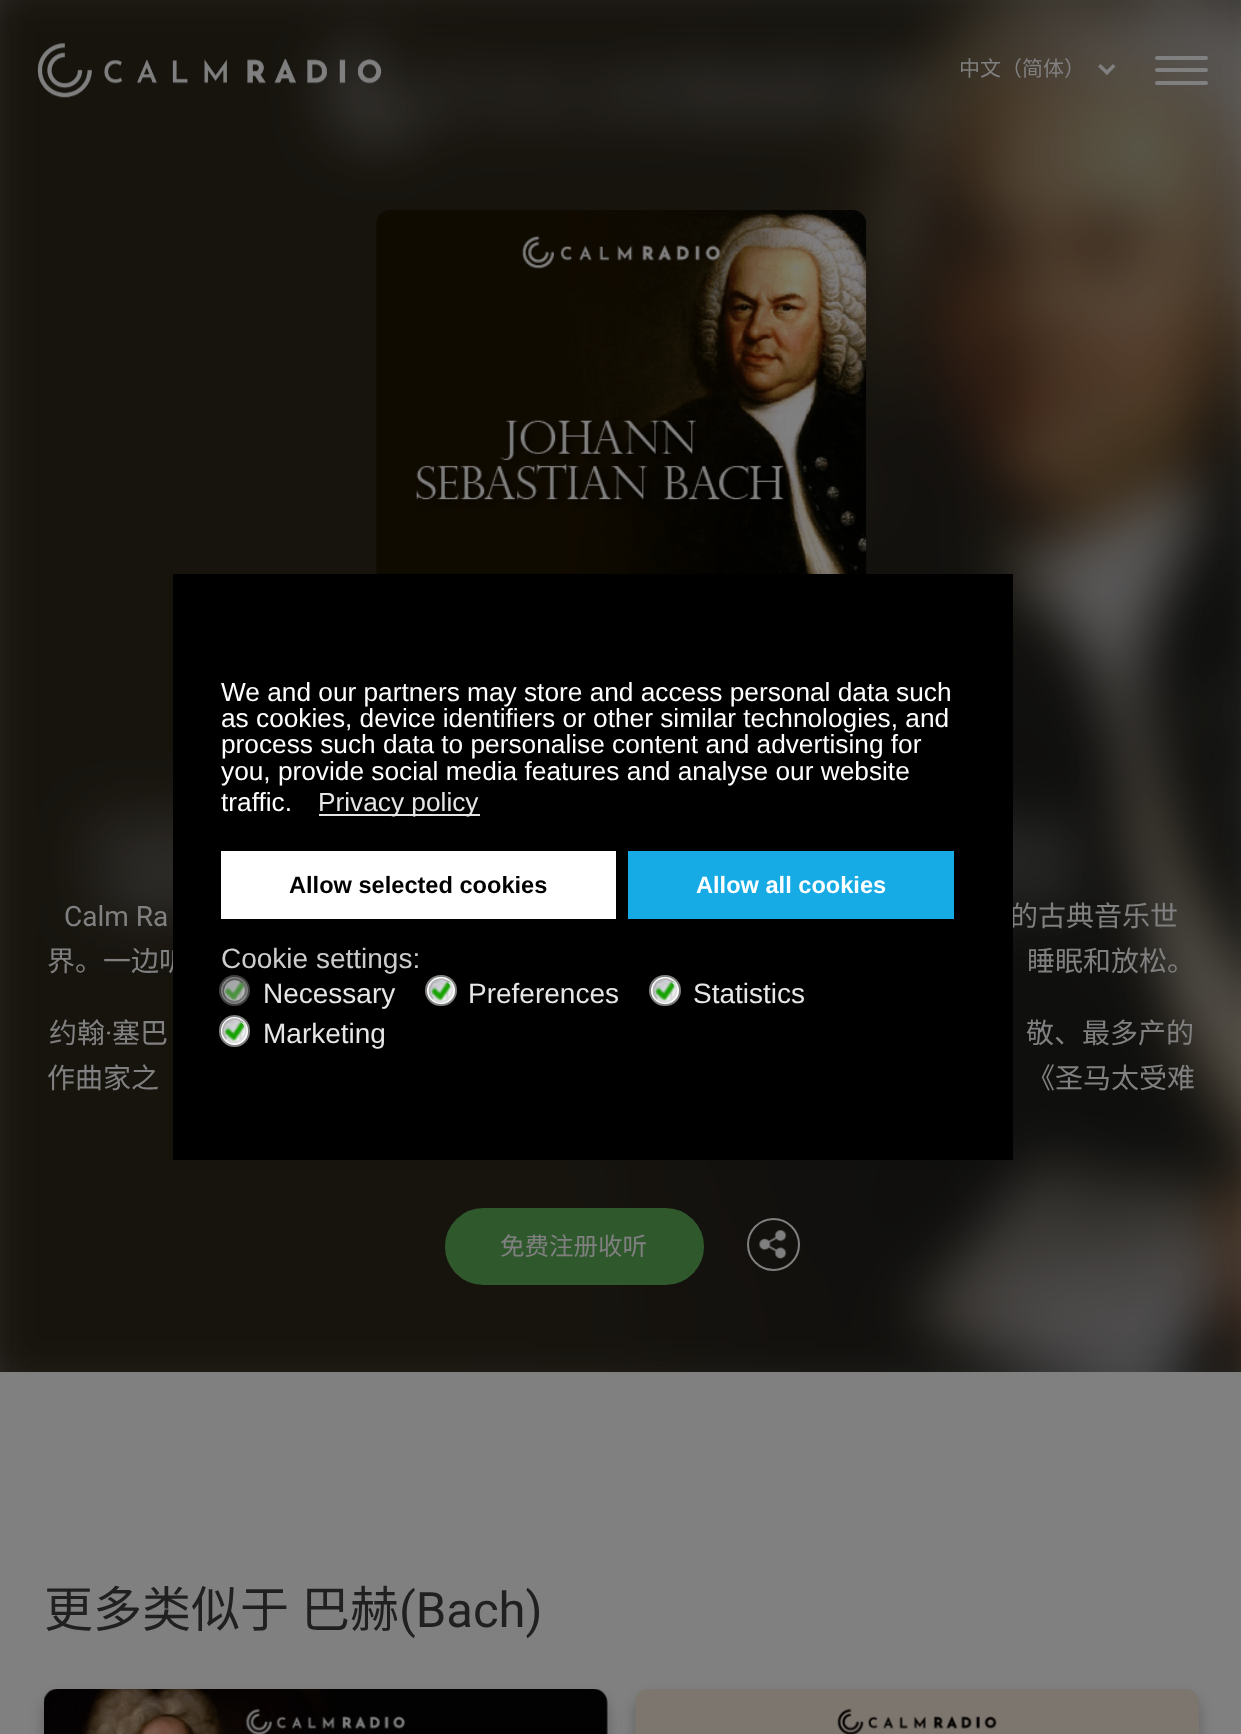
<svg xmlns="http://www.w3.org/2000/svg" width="1241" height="1734">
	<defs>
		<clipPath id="clip1"><rect x="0" y="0" width="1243" height="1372" /></clipPath>
	</defs>
	<rect width="100%" height="100%" fill="#808080" />
	<image x="0" y="0" width="1241" height="1372" href="assets/img2.png" />
	<g clip-path="url(#clip1)">
		<rect x="-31" y="-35" width="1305" height="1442" fill="#232323" fill-opacity="0.4" filter="blur(26px)" />
	</g>
	<image x="37" y="43" width="345" height="55" href="assets/img1.png" />
	<text x="959" y="76" font-family="Noto Sans CJK SC" font-size="21" fill="#808080">中文（简体）</text>
	<path d="M1113 64L1115.5 66.5L1107 75L1104.5 72.5Z" fill="#808080" />
	<path d="M1100.5 64L1109.5 72.5L1107 75L1098 66.5Z" fill="#808080" />
	<rect x="1155" y="56" width="53" height="4" rx="2" fill="#808080" />
	<rect x="1155" y="68" width="53" height="4" rx="2" fill="#808080" />
	<rect x="1155" y="81" width="53" height="4" rx="2" fill="#808080" />
	<image x="376" y="210" width="491" height="364" href="assets/img3.png" />
	<text x="64" y="926" font-family="Roboto" font-size="28" fill="#808080">Calm Ra</text>
	<g font-family="Noto Sans CJK SC" font-size="28" fill="#808080">
		<text x="1010" y="926">的古典音乐世</text>
		<text x="47" y="971">界。一边听</text>
		<text x="1027" y="971">睡眠和放松。</text>
		<text x="49" y="1043">约翰</text>
	</g>
	<text x="105" y="1043" font-family="Roboto" font-size="28" fill="#808080">·</text>
	<g font-family="Noto Sans CJK SC" font-size="28" fill="#808080">
		<text x="112" y="1043">塞巴</text>
		<text x="1026" y="1043">敬、最多产的</text>
		<text x="47" y="1088">作曲家之</text>
		<text x="1027" y="1088">《圣马太受难</text>
	</g>
	<rect x="447" y="1210" width="255" height="73" rx="36.5" fill="#2F592C" stroke="#2F592C" stroke-width="4" />
	<text x="500" y="1255" font-family="Noto Sans CJK SC" font-size="24.5" fill="#808080">免费注册收听</text>
	<circle cx="773.5" cy="1244.5" r="25.5" fill="none" stroke="#808080" stroke-width="2" />
	<image x="759" y="1230" width="28" height="29" href="assets/img4.png" />
	<g font-family="Noto Sans CJK SC" font-size="49" fill="#202020">
		<text x="44" y="1627">更多类似于</text>
		<text x="301" y="1627">巴赫</text>
	</g>
	<text x="399" y="1627" font-family="Roboto" font-size="49" fill="#202020">(Bach)</text>
	<rect x="44" y="1698" width="563" height="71" rx="14" fill="#000000" fill-opacity="0.25" filter="blur(7px)" />
	<image x="44" y="1689" width="564" height="45" href="assets/img5.png" />
	<rect x="635" y="1698" width="564" height="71" rx="14" fill="#000000" fill-opacity="0.25" filter="blur(7px)" />
	<image x="635" y="1689" width="564" height="45" href="assets/img6.png" />
	<rect x="173" y="574" width="840" height="586" fill="#000000" />
	<g font-family="Liberation Sans" font-size="26.25" fill="#FFFFFF">
		<text x="221" y="701">We and our partners may store and access personal data such</text>
		<text x="221" y="727">as cookies, device identifiers or other similar technologies, and</text>
		<text x="221" y="753">process such data to personalise content and advertising for</text>
		<text x="221" y="780">you, provide social media features and analyse our website</text>
		<text x="221" y="811">traffic.</text>
	</g>
	<rect x="319" y="814" width="161" height="2" fill="#E6E6E6" />
	<text x="318" y="811" font-family="Liberation Sans" font-size="26.25" fill="#E6E6E6">Privacy policy</text>
	<rect x="221" y="851" width="395" height="68" fill="#FFFFFF" />
	<text x="289" y="893" font-family="Liberation Sans" font-size="23.6" font-weight="700" fill="#000000">Allow selected cookies</text>
	<rect x="628" y="851" width="326" height="68" fill="#17ABE5" />
	<text x="696" y="893" font-family="Liberation Sans" font-size="23.6" font-weight="700" fill="#FFFFFF">Allow all cookies</text>
	<text x="221" y="968" font-family="Liberation Sans" font-size="28" fill="#CCCCCC">Cookie settings:</text>
	<circle cx="234.5" cy="990.5" r="14.5" fill="#808080" stroke="#404040" stroke-width="2" />
	<image x="222" y="979" width="24" height="24" href="assets/img7.png" />
	<path d="M242.5 982.5C253 993 237 1009 226.5 998.5" fill="none" stroke="#6E6F6F" stroke-width="1.8" />
	<path d="M226.5 998.5C216 988 232 972 242.5 982.5" fill="none" stroke="#5A5A5A" stroke-width="1.8" />
	<text x="263" y="1003" font-family="Liberation Sans" font-size="28" fill="#E6E6E6">Necessary</text>
	<rect x="426" y="976" width="30" height="29" rx="14.5" fill="#FFFFFF" stroke="#808080" stroke-width="2" />
	<image x="428" y="979" width="25" height="24" href="assets/img8.png" />
	<path d="M449 982.5C459.5 993 443.5 1009 433 998.5" fill="none" stroke="#DCDDDE" stroke-width="1.8" />
	<path d="M433 998.5C422.5 988 438.5 972 449 982.5" fill="none" stroke="#B3B3B3" stroke-width="1.8" />
	<text x="468" y="1003" font-family="Liberation Sans" font-size="28" fill="#E6E6E6">Preferences</text>
	<rect x="650" y="976" width="30" height="29" rx="14.5" fill="#FFFFFF" stroke="#808080" stroke-width="2" />
	<image x="652" y="979" width="25" height="24" href="assets/img8.png" />
	<path d="M673 982.5C683.5 993 667.5 1009 657 998.5" fill="none" stroke="#DCDDDE" stroke-width="1.8" />
	<path d="M657 998.5C646.5 988 662.5 972 673 982.5" fill="none" stroke="#B3B3B3" stroke-width="1.8" />
	<text x="693" y="1003" font-family="Liberation Sans" font-size="28" fill="#E6E6E6">Statistics</text>
	<rect x="220" y="1016" width="29" height="30" rx="14.5" fill="#FFFFFF" stroke="#808080" stroke-width="2" />
	<image x="222" y="1020" width="24" height="24" href="assets/img9.png" />
	<path d="M242.5 1022.5C253 1033.5 237 1049.5 226.5 1039" fill="none" stroke="#DCDDDE" stroke-width="1.8" />
	<path d="M226.5 1039C216 1028 232 1012 242.5 1022.5" fill="none" stroke="#B3B3B3" stroke-width="1.8" />
	<text x="263" y="1043" font-family="Liberation Sans" font-size="28" fill="#E6E6E6">Marketing</text>
</svg>
